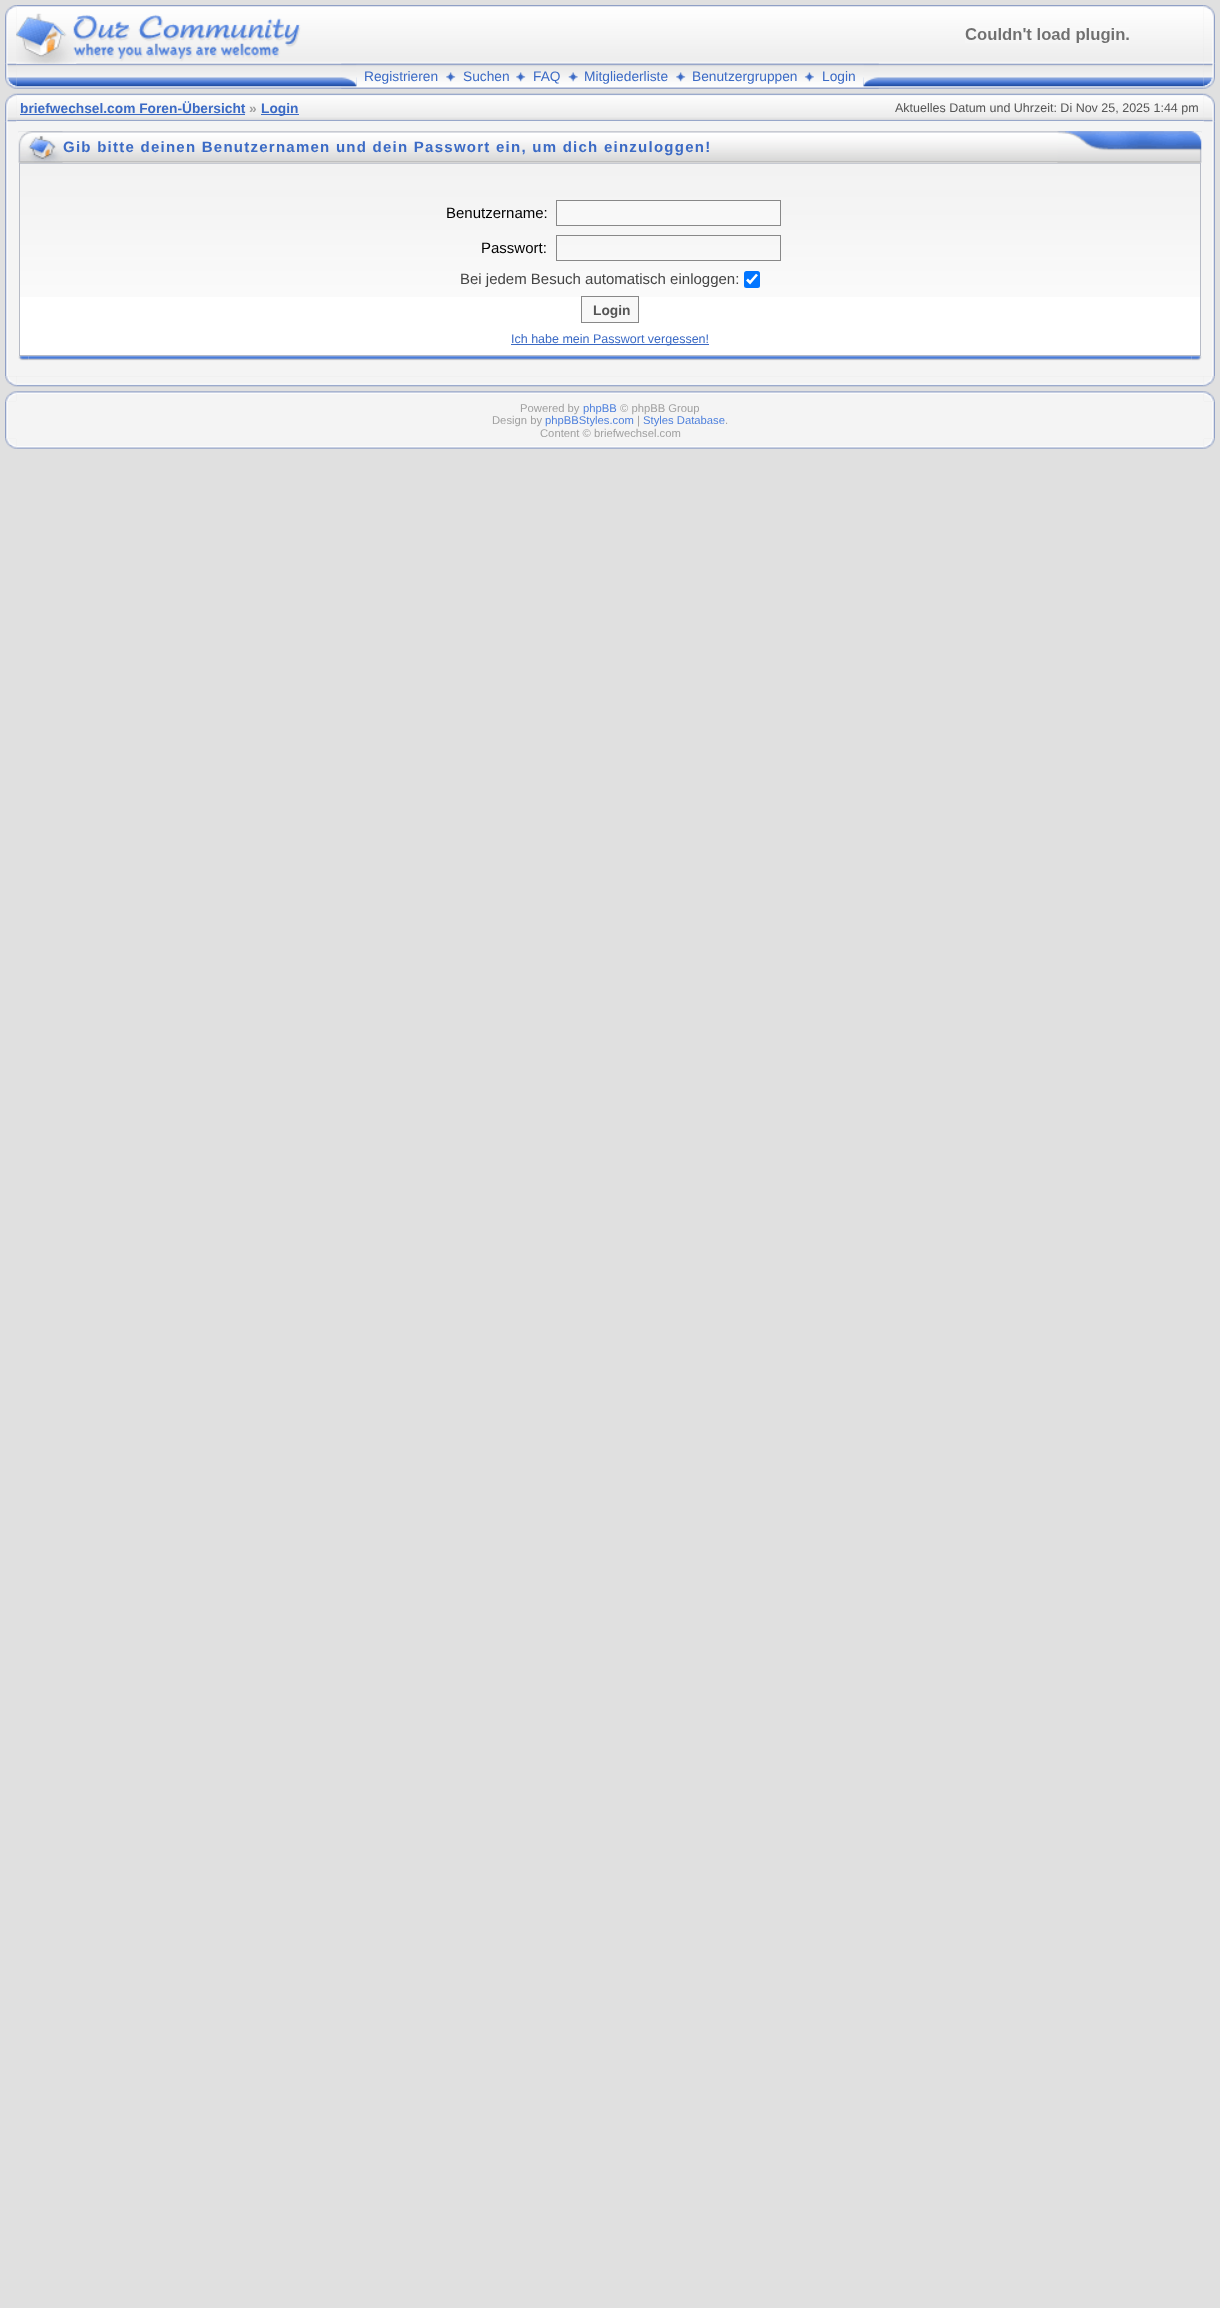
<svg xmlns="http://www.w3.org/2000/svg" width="1220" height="2308">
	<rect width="100%" height="100%" fill="#E0E0E0" />
	<image x="16" y="5" width="1188" height="59" href="assets/img2.png" />
	<image x="16" y="63" width="1188" height="26" href="assets/img7.png" />
	<image x="5" y="5" width="12" height="59" href="assets/img1.png" />
	<image x="16" y="13" width="285" height="51" href="assets/img3.png" />
	<image x="965" y="28" width="164" height="15" href="assets/img4.png" />
	<image x="1203" y="5" width="12" height="59" href="assets/img5.png" />
	<image x="5" y="63" width="12" height="26" href="assets/img6.png" />
	<image x="356" y="63" width="508" height="26" href="assets/img9.png" />
	<image x="341" y="63" width="16" height="26" href="assets/img8.png" />
	<text x="364" y="81" font-family="Liberation Sans" font-size="13.75" fill="#3B6AC5">Registrieren</text>
	<image x="446" y="72" width="10" height="10" href="assets/img10.png" />
	<text x="463" y="81" font-family="Liberation Sans" font-size="13.75" fill="#3B6AC5">Suchen</text>
	<image x="516" y="72" width="10" height="10" href="assets/img10.png" />
	<text x="533" y="81" font-family="Liberation Sans" font-size="13.75" fill="#3B6AC5">FAQ</text>
	<image x="568" y="72" width="10" height="10" href="assets/img11.png" />
	<text x="584" y="81" font-family="Liberation Sans" font-size="13.75" fill="#3B6AC5">Mitgliederliste</text>
	<image x="676" y="72" width="10" height="10" href="assets/img10.png" />
	<text x="692" y="81" font-family="Liberation Sans" font-size="13.75" fill="#3B6AC5">Benutzergruppen</text>
	<image x="804" y="72" width="10" height="10" href="assets/img12.png" />
	<text x="822" y="81" font-family="Liberation Sans" font-size="13.75" fill="#3B6AC5">Login</text>
	<image x="863" y="63" width="16" height="26" href="assets/img13.png" />
	<image x="1203" y="63" width="12" height="26" href="assets/img14.png" />
	<image x="16" y="93" width="1188" height="28" href="assets/img16.png" />
	<image x="5" y="121" width="12" height="256" href="assets/img18.png" />
	<rect x="16" y="121" width="1188" height="255" fill="#F4F4F4" />
	<image x="5" y="93" width="12" height="29" href="assets/img15.png" />
	<text x="20" y="113" font-family="Liberation Sans" font-size="13.75" font-weight="700" fill="#3B6AC5">briefwechsel.com Foren-Übersicht</text>
	<rect x="20" y="114" width="225" height="1" fill="#3B6AC5" />
	<text x="249" y="113" font-family="Liberation Sans" font-size="13.75" font-weight="700" fill="#A0A0A0">»</text>
	<rect x="261" y="114" width="38" height="1" fill="#3B6AC5" />
	<text x="261" y="113" font-family="Liberation Sans" font-size="13.75" font-weight="700" fill="#3B6AC5">Login</text>
	<text x="895" y="112" font-family="Liberation Sans" font-size="12.5" fill="#555555">Aktuelles Datum und Uhrzeit: Di Nov 25, 2025 1:44 pm</text>
	<image x="1204" y="121" width="11" height="256" href="assets/img26.png" />
	<image x="1203" y="93" width="12" height="29" href="assets/img17.png" />
	<image x="18" y="131" width="1184" height="32" href="assets/img19.png" />
	<image x="18" y="131" width="45" height="32" href="assets/img20.png" />
	<text x="63" y="152" font-family="Liberation Sans" font-size="15" font-weight="700" letter-spacing="1.25" fill="#3B6AC5">Gib bitte deinen Benutzernamen und dein Passwort ein, um dich einzuloggen!</text>
	<image x="1057" y="131" width="145" height="32" href="assets/img21.png" />
	<rect x="19" y="163" width="1182" height="193" fill="#B7BBC6" />
	<rect x="20" y="297" width="1180" height="58" fill="#FFFFFF" />
	<image x="20" y="163" width="1180" height="134" href="assets/img22.png" />
	<text x="446" y="218" font-family="Liberation Sans" font-size="15" fill="#000000">Benutzername:</text>
	<rect x="556.5" y="200.5" width="224" height="25" fill="#F8F8F8" stroke="#888888" />
	<text x="481" y="253" font-family="Liberation Sans" font-size="15" fill="#000000">Passwort:</text>
	<rect x="556.5" y="235.5" width="224" height="25" fill="none" stroke="#888888" />
	<text x="460" y="284" font-family="Liberation Sans" font-size="15" fill="#444444">Bei jedem Besuch automatisch einloggen:</text>
	<rect x="744" y="271" width="16" height="17" rx="2.5" fill="#0075FF" />
	<path d="M747 279.5L750 282.5L757 274.5" fill="none" stroke="#FFFFFF" stroke-width="2.6" />
	<rect x="581.5" y="296.5" width="57" height="26" fill="#F8F8F8" stroke="#888888" />
	<text x="593" y="315" font-family="Liberation Sans" font-size="13.75" font-weight="700" fill="#555555">Login</text>
	<rect x="511" y="344" width="198" height="1" fill="#3B6AC5" />
	<text x="511" y="343" font-family="Liberation Sans" font-size="12.5" fill="#3B6AC5">Ich habe mein Passwort vergessen!</text>
	<image x="28" y="356" width="1164" height="5" href="assets/img24.png" />
	<image x="18" y="356" width="11" height="5" href="assets/img23.png" />
	<image x="1191" y="356" width="11" height="5" href="assets/img25.png" />
	<image x="16" y="376" width="1188" height="11" href="assets/img28.png" />
	<image x="5" y="376" width="12" height="11" href="assets/img27.png" />
	<image x="1203" y="376" width="12" height="11" href="assets/img29.png" />
	<image x="16" y="391" width="1188" height="10" href="assets/img31.png" />
	<image x="5" y="401" width="11" height="38" href="assets/img33.png" />
	<rect x="16" y="401" width="1188" height="38" fill="#F4F4F4" />
	<image x="5" y="391" width="12" height="11" href="assets/img30.png" />
	<image x="1203" y="391" width="12" height="10" href="assets/img32.png" />
	<text x="520" y="412" font-family="Liberation Sans" font-size="11.25" fill="#A0A0A0">Powered by</text>
	<text x="583" y="412" font-family="Liberation Sans" font-size="11.25" fill="#4E80DD">phpBB</text>
	<g font-family="Liberation Sans" font-size="11.25" fill="#A0A0A0">
		<text x="620" y="412">© phpBB Group</text>
		<text x="492" y="424">Design by</text>
	</g>
	<text x="545" y="424" font-family="Liberation Sans" font-size="11.25" fill="#4E80DD">phpBBStyles.com</text>
	<text x="637" y="424" font-family="Liberation Sans" font-size="11.25" fill="#A0A0A0">|</text>
	<text x="643" y="424" font-family="Liberation Sans" font-size="11.25" fill="#4E80DD">Styles Database</text>
	<g font-family="Liberation Sans" font-size="11.25" fill="#A0A0A0">
		<text x="725" y="424">.</text>
		<text x="540" y="437">Content © briefwechsel.com</text>
	</g>
	<image x="1204" y="401" width="11" height="38" href="assets/img34.png" />
	<image x="16" y="439" width="1188" height="10" href="assets/img36.png" />
	<image x="5" y="438" width="12" height="11" href="assets/img35.png" />
	<image x="1203" y="439" width="12" height="10" href="assets/img37.png" />
</svg>
